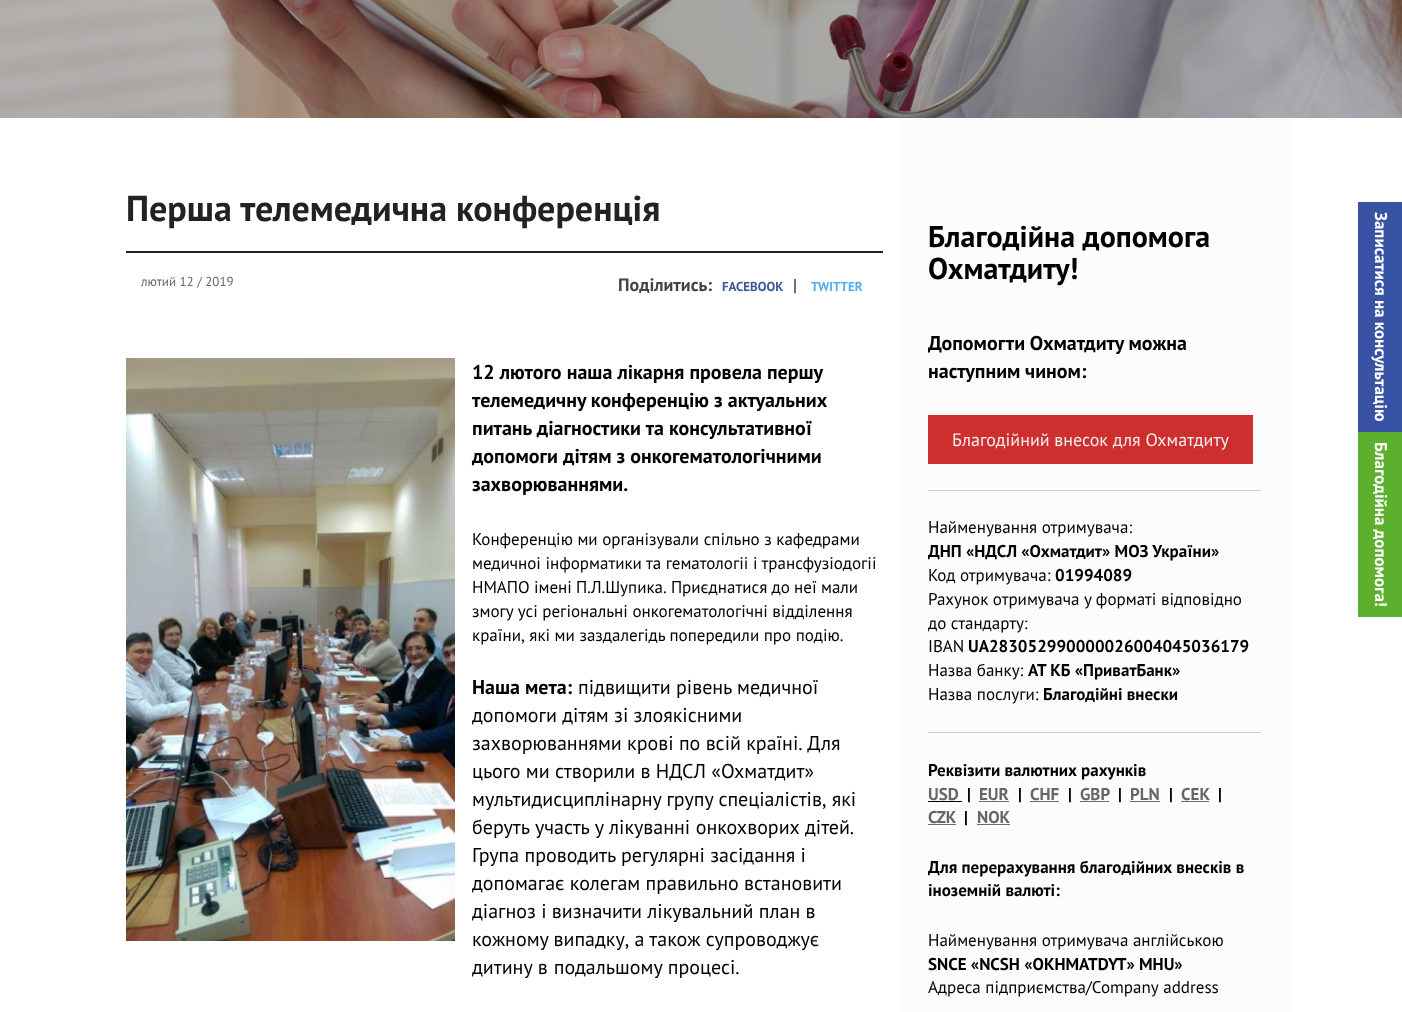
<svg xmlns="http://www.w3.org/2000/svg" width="1402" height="1012">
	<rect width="100%" height="100%" fill="#FFFFFF" />
	<image x="0" y="0" width="1402" height="118" href="assets/img1.png" />
	<text x="126" y="221" font-family="PT Sans" font-size="36" font-weight="700" fill="#222222">Перша телемедична конференція</text>
	<rect x="126" y="251" width="757" height="2" fill="#222222" />
	<text x="141" y="286" font-family="PT Sans" font-size="13" fill="#666666">лютий 12 / 2019</text>
	<text x="618" y="291" font-family="PT Sans" font-size="18" font-weight="700" fill="#444444">Поділитись:</text>
	<text x="722" y="291" font-family="PT Sans" font-size="13" font-weight="700" fill="#3B5998">FACEBOOK</text>
	<text x="793" y="291" font-family="PT Sans" font-size="17" fill="#000000">|</text>
	<text x="811" y="291" font-family="PT Sans" font-size="13" font-weight="700" fill="#55ACEE">TWITTER</text>
	<image x="126" y="358" width="329" height="583" href="assets/img2.png" />
	<g font-family="PT Sans" font-size="20" font-weight="700" fill="#000000">
		<text x="472" y="379">12 лютого наша лікарня провела першу</text>
		<text x="472" y="407">телемедичну конференцію з актуальних</text>
		<text x="472" y="435">питань діагностики та консультативної</text>
		<text x="472" y="463">допомоги дітям з онкогематологічними</text>
		<text x="472" y="491">захворюваннями.</text>
	</g>
	<g font-family="PT Sans" font-size="17" fill="#000000">
		<text x="472" y="545">Конференцію ми організували спільно з кафедрами</text>
		<text x="472" y="569">медичноі інформатики та гематологіі і трансфузіодогіі</text>
		<text x="472" y="593" word-spacing="-0.25">НМАПО імені П.Л.Шупика. Приєднатися до неї мали</text>
		<text x="472" y="617">змогу усі регіональні онкогематологічні відділення</text>
		<text x="472" y="641">країни, які ми заздалегідь попередили про подію.</text>
	</g>
	<text x="472" y="694" font-family="PT Sans" font-size="20" font-weight="700" fill="#000000">Наша мета:</text>
	<g font-family="PT Sans" font-size="20" fill="#000000">
		<text x="578" y="694">підвищити рівень медичної</text>
		<text x="472" y="722">допомоги дітям зі злоякісними</text>
		<text x="472" y="750">захворюваннями крові по всій країні. Для</text>
		<text x="472" y="778">цього ми створили в НДСЛ «Охматдит»</text>
		<text x="472" y="806">мультидисциплінарну групу спеціалістів, які</text>
		<text x="472" y="834" word-spacing="0.25">беруть участь у лікуванні онкохворих дітей.</text>
		<text x="472" y="862">Група проводить регулярні засідання і</text>
		<text x="472" y="890">допомагає колегам правильно встановити</text>
		<text x="472" y="918">діагноз і визначити лікувальний план в</text>
		<text x="472" y="946">кожному випадку, а також супроводжує</text>
		<text x="472" y="974" word-spacing="0.5">дитину в подальшому процесі.</text>
	</g>
	<rect x="898" y="118" width="393" height="894" fill="#FCFCFC" />
	<g font-family="PT Sans" font-size="30" font-weight="700" fill="#000000">
		<text x="928" y="247">Благодійна допомога</text>
		<text x="928" y="279">Охматдиту!</text>
	</g>
	<g font-family="PT Sans" font-size="20" font-weight="700" fill="#000000">
		<text x="928" y="350">Допомогти Охматдиту можна</text>
		<text x="928" y="378">наступним чином:</text>
	</g>
	<rect x="928" y="415" width="325" height="49" fill="#CF2E2E" />
	<text x="952" y="446" font-family="PT Sans" font-size="18" fill="#EEEEEE">Благодійний внесок для Охматдиту</text>
	<rect x="928" y="490" width="333" height="1" fill="#CCCCCC" />
	<text x="928" y="533" font-family="PT Sans" font-size="17" fill="#000000">Найменування отримувача:</text>
	<text x="928" y="557" font-family="PT Sans" font-size="17" font-weight="700" fill="#000000">ДНП «НДСЛ «Охматдит» МОЗ України»</text>
	<text x="928" y="581" font-family="PT Sans" font-size="17" fill="#000000">Код отримувача:</text>
	<text x="1055" y="581" font-family="PT Sans" font-size="17" font-weight="700" fill="#000000">01994089</text>
	<g font-family="PT Sans" font-size="17" fill="#000000">
		<text x="928" y="605">Рахунок отримувача у форматі відповідно</text>
		<text x="928" y="629">до стандарту:</text>
		<text x="928" y="652">IBAN</text>
	</g>
	<text x="968" y="652" font-family="PT Sans" font-size="17" font-weight="700" fill="#000000">UA283052990000026004045036179</text>
	<text x="928" y="676" font-family="PT Sans" font-size="17" fill="#000000">Назва банку:</text>
	<text x="1028" y="676" font-family="PT Sans" font-size="17" font-weight="700" fill="#000000">АТ КБ «ПриватБанк»</text>
	<text x="928" y="700" font-family="PT Sans" font-size="17" fill="#000000">Назва послуги:</text>
	<text x="1043" y="700" font-family="PT Sans" font-size="17" font-weight="700" fill="#000000">Благодійні внески</text>
	<rect x="928" y="732" width="333" height="1" fill="#CCCCCC" />
	<text x="928" y="776" font-family="PT Sans" font-size="17" font-weight="700" fill="#000000">Реквізити валютних рахунків</text>
	<text x="928" y="800" font-family="PT Sans" font-size="17" font-weight="700" fill="#666666">USD</text>
	<rect x="928" y="801" width="34" height="1" fill="#000000" />
	<text x="967" y="800" font-family="PT Sans" font-size="17" font-weight="700" fill="#000000">|</text>
	<text x="979" y="800" font-family="PT Sans" font-size="17" font-weight="700" fill="#666666">EUR</text>
	<rect x="979" y="801" width="30" height="1" fill="#6B6B6B" />
	<text x="1018" y="800" font-family="PT Sans" font-size="17" font-weight="700" fill="#000000">|</text>
	<text x="1030" y="800" font-family="PT Sans" font-size="17" font-weight="700" fill="#666666">CHF</text>
	<rect x="1030" y="801" width="29" height="1" fill="#6B6B6B" />
	<text x="1068" y="800" font-family="PT Sans" font-size="17" font-weight="700" fill="#000000">|</text>
	<text x="1080" y="800" font-family="PT Sans" font-size="17" font-weight="700" fill="#666666">GBP</text>
	<rect x="1080" y="801" width="29" height="1" fill="#6B6B6B" />
	<text x="1118" y="800" font-family="PT Sans" font-size="17" font-weight="700" fill="#000000">|</text>
	<text x="1130" y="800" font-family="PT Sans" font-size="17" font-weight="700" fill="#666666">PLN</text>
	<rect x="1130" y="801" width="30" height="1" fill="#6B6B6B" />
	<text x="1169" y="800" font-family="PT Sans" font-size="17" font-weight="700" fill="#000000">|</text>
	<text x="1181" y="800" font-family="PT Sans" font-size="17" font-weight="700" fill="#666666">CEK</text>
	<rect x="1181" y="801" width="28" height="1" fill="#6B6B6B" />
	<text x="1218" y="800" font-family="PT Sans" font-size="17" font-weight="700" fill="#000000">|</text>
	<text x="928" y="823" font-family="PT Sans" font-size="17" font-weight="700" fill="#666666">CZK</text>
	<rect x="928" y="824" width="28" height="1" fill="#6B6B6B" />
	<text x="964" y="823" font-family="PT Sans" font-size="17" font-weight="700" fill="#000000">|</text>
	<text x="977" y="823" font-family="PT Sans" font-size="17" font-weight="700" fill="#666666">NOK</text>
	<rect x="977" y="824" width="33" height="1" fill="#6B6B6B" />
	<g font-family="PT Sans" font-size="17" font-weight="700" fill="#000000">
		<text x="928" y="873">Для перерахування благодійних внесків в</text>
		<text x="928" y="896">іноземній валюті:</text>
	</g>
	<text x="928" y="946" font-family="PT Sans" font-size="17" fill="#000000">Найменування отримувача англійською</text>
	<text x="928" y="970" font-family="PT Sans" font-size="17" font-weight="700" fill="#000000">SNCE «NCSH «OKHMATDYT» MHU»</text>
	<text x="928" y="993" font-family="PT Sans" font-size="17" fill="#000000">Адреса підприємства/Company address</text>
	<rect x="1358" y="202" width="44" height="230" fill="#3953A4" />
	<text x="1375" y="212" transform="rotate(90 1375 212)" font-family="PT Sans" font-size="17" font-weight="700" fill="#FFFFFF">Записатися на консультацiю</text>
	<rect x="1358" y="432" width="44" height="185" fill="#5DB02E" />
	<text x="1375" y="442" transform="rotate(90 1375 442)" font-family="PT Sans" font-size="17" font-weight="700" fill="#FFFFFF">Благодійна допомога!</text>
</svg>
